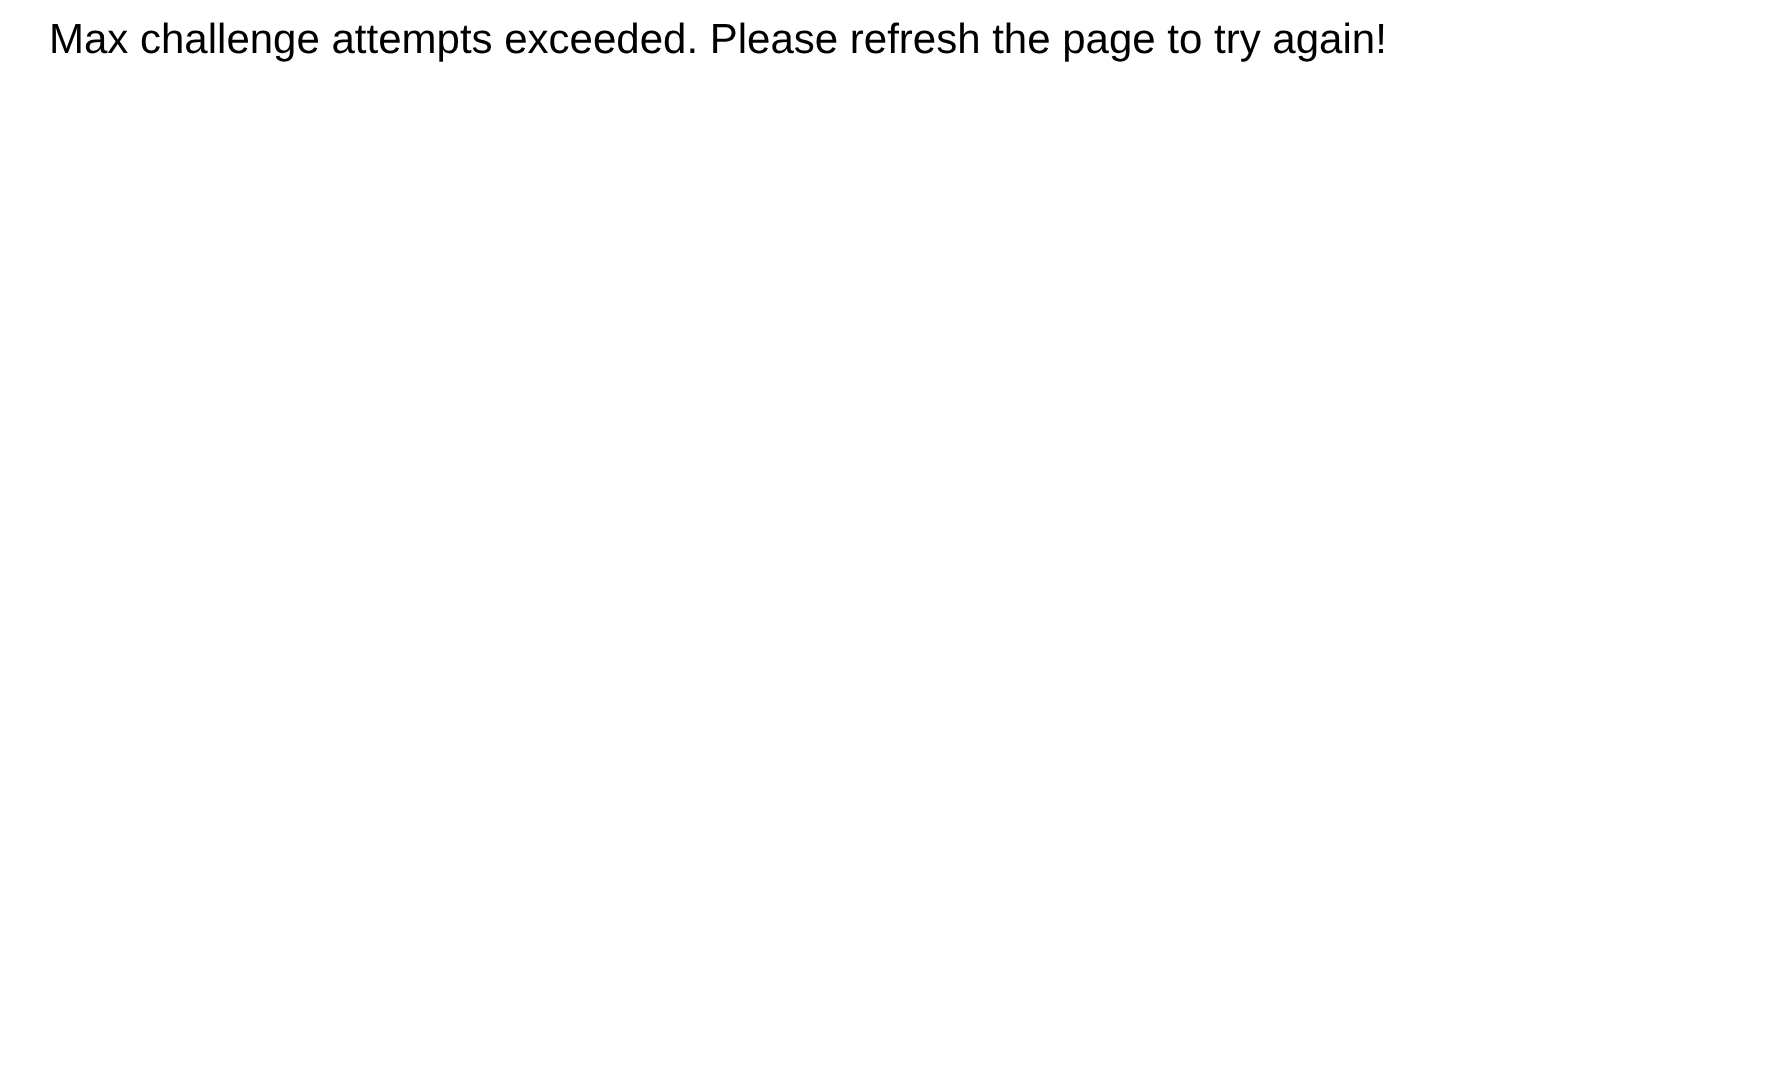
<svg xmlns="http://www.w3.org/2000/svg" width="1777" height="1078">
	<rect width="100%" height="100%" fill="#FFFFFF" />
	<text x="49" y="53" font-family="Liberation Sans" font-size="42" fill="#000000">Max challenge attempts exceeded. Please refresh the page to try again!</text>
</svg>
